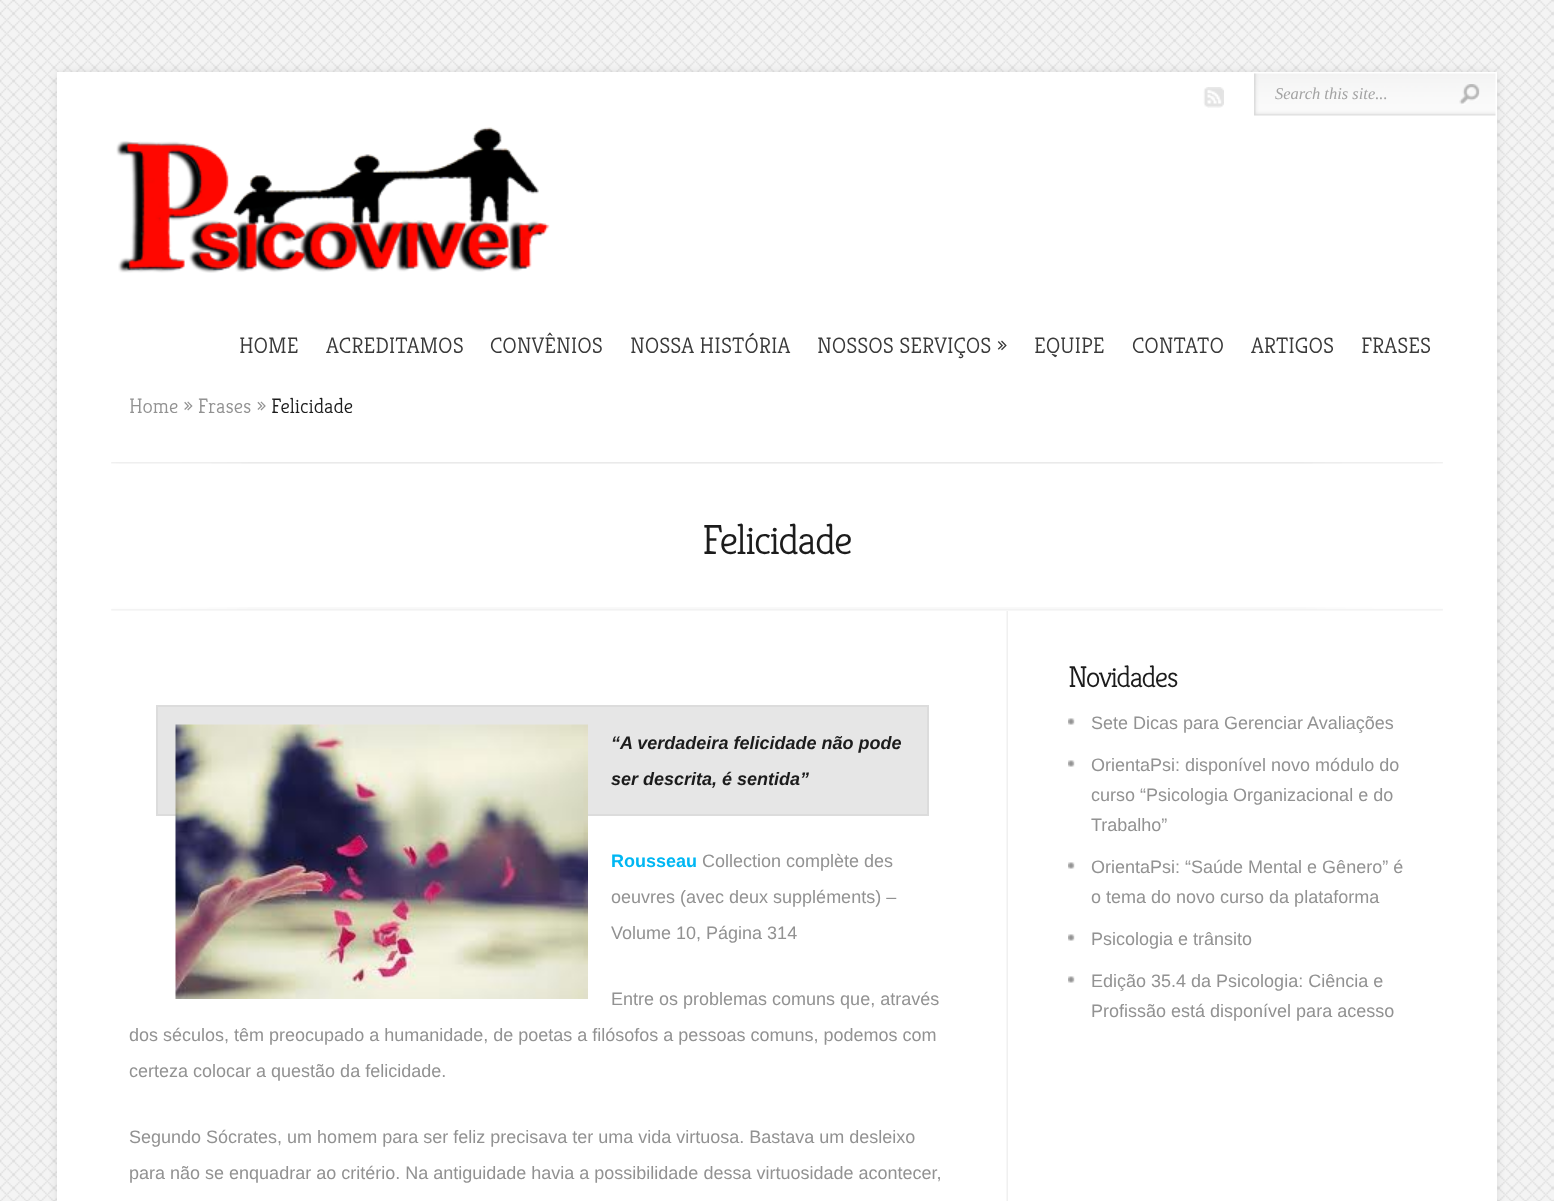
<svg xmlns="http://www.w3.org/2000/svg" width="1554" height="1201">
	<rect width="100%" height="100%" fill="#F4F4F4" />
	<image x="0" y="0" width="1554" height="1201" href="assets/img1.png" />
	<rect x="57" y="72" width="1440" height="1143" fill="#000000" fill-opacity="0.1" filter="blur(4.5px)" />
	<rect x="57" y="72" width="1440" height="1129" fill="#FFFFFF" />
	<image x="1203" y="87" width="21" height="21" href="assets/img2.png" />
	<image x="1254" y="73" width="242" height="43" href="assets/img3.png" />
	<text x="1275" y="99" font-family="Liberation Serif" font-size="16.5" font-style="italic" fill="#A3A3A3">Search this site...</text>
	<image x="1459" y="84" width="21" height="21" href="assets/img4.png" />
	<image x="116" y="127" width="434" height="146" href="assets/img5.png" />
	<g font-family="Kreon" font-size="22.5" font-weight="300" fill="#393939">
		<text x="239" y="353">HOME</text>
		<text x="326" y="353">ACREDITAMOS</text>
		<text x="490" y="353">CONVÊNIOS</text>
		<text x="630" y="353">NOSSA HISTÓRIA</text>
		<text x="817" y="353">NOSSOS SERVIÇOS »</text>
		<text x="1034" y="353">EQUIPE</text>
		<text x="1132" y="353">CONTATO</text>
		<text x="1251" y="353">ARTIGOS</text>
		<text x="1361" y="353">FRASES</text>
	</g>
	<text x="129" y="413" font-family="Kreon" font-size="21" font-weight="300" fill="#929292">Home » Frases »</text>
	<text x="271" y="413" font-family="Kreon" font-size="21" font-weight="300" fill="#1C1C1C">Felicidade</text>
	<image x="111" y="462" width="1332" height="2" href="assets/img6.png" />
	<image x="111" y="607" width="1332" height="4" href="assets/img7.png" />
	<text x="702" y="554" font-family="Kreon" font-size="42" font-weight="300" letter-spacing="-1.5" fill="#1C1C1C">Felicidade</text>
	<image x="1006" y="611" width="2" height="590" href="assets/img8.png" />
	<rect x="157" y="706" width="771" height="109" fill="#E6E6E6" stroke="#DCDCDC" stroke-width="2" />
	<image x="175" y="724" width="413" height="275" href="assets/img9.png" />
	<g font-family="Liberation Sans" font-size="18" font-weight="700" font-style="italic" fill="#1C1C1C">
		<text x="611" y="749">“A verdadeira felicidade não pode</text>
		<text x="611" y="785">ser descrita, é sentida”</text>
	</g>
	<text x="611" y="867" font-family="Liberation Sans" font-size="18" font-weight="700" fill="#00B7F3">Rousseau</text>
	<g font-family="Liberation Sans" font-size="18" fill="#929292">
		<text x="702" y="867">Collection complète des</text>
		<text x="611" y="903">oeuvres (avec deux suppléments) –</text>
		<text x="611" y="939">Volume 10, Página 314</text>
		<text x="611" y="1005">Entre os problemas comuns que, através</text>
		<text x="129" y="1041">dos séculos, têm preocupado a humanidade, de poetas a filósofos a pessoas comuns, podemos com</text>
		<text x="129" y="1077">certeza colocar a questão da felicidade.</text>
		<text x="129" y="1143">Segundo Sócrates, um homem para ser feliz precisava ter uma vida virtuosa. Bastava um desleixo</text>
		<text x="129" y="1179">para não se enquadrar ao critério. Na antiguidade havia a possibilidade dessa virtuosidade acontecer,</text>
	</g>
	<text x="1068" y="687" font-family="Kreon" font-size="30" font-weight="300" letter-spacing="-1.5" fill="#1C1C1C">Novidades</text>
	<image x="1068" y="718" width="7" height="7" href="assets/img10.png" />
	<text x="1091" y="729" font-family="Liberation Sans" font-size="18" fill="#929292">Sete Dicas para Gerenciar Avaliações</text>
	<image x="1068" y="760" width="7" height="7" href="assets/img10.png" />
	<g font-family="Liberation Sans" font-size="18" fill="#929292">
		<text x="1091" y="771">OrientaPsi: disponível novo módulo do</text>
		<text x="1091" y="801">curso “Psicologia Organizacional e do</text>
		<text x="1091" y="831">Trabalho”</text>
	</g>
	<image x="1068" y="862" width="7" height="7" href="assets/img10.png" />
	<g font-family="Liberation Sans" font-size="18" fill="#929292">
		<text x="1091" y="873">OrientaPsi: “Saúde Mental e Gênero” é</text>
		<text x="1091" y="903">o tema do novo curso da plataforma</text>
	</g>
	<image x="1068" y="934" width="7" height="7" href="assets/img10.png" />
	<text x="1091" y="945" font-family="Liberation Sans" font-size="18" fill="#929292">Psicologia e trânsito</text>
	<image x="1068" y="976" width="7" height="7" href="assets/img10.png" />
	<g font-family="Liberation Sans" font-size="18" fill="#929292">
		<text x="1091" y="987">Edição 35.4 da Psicologia: Ciência e</text>
		<text x="1091" y="1017">Profissão está disponível para acesso</text>
	</g>
</svg>
